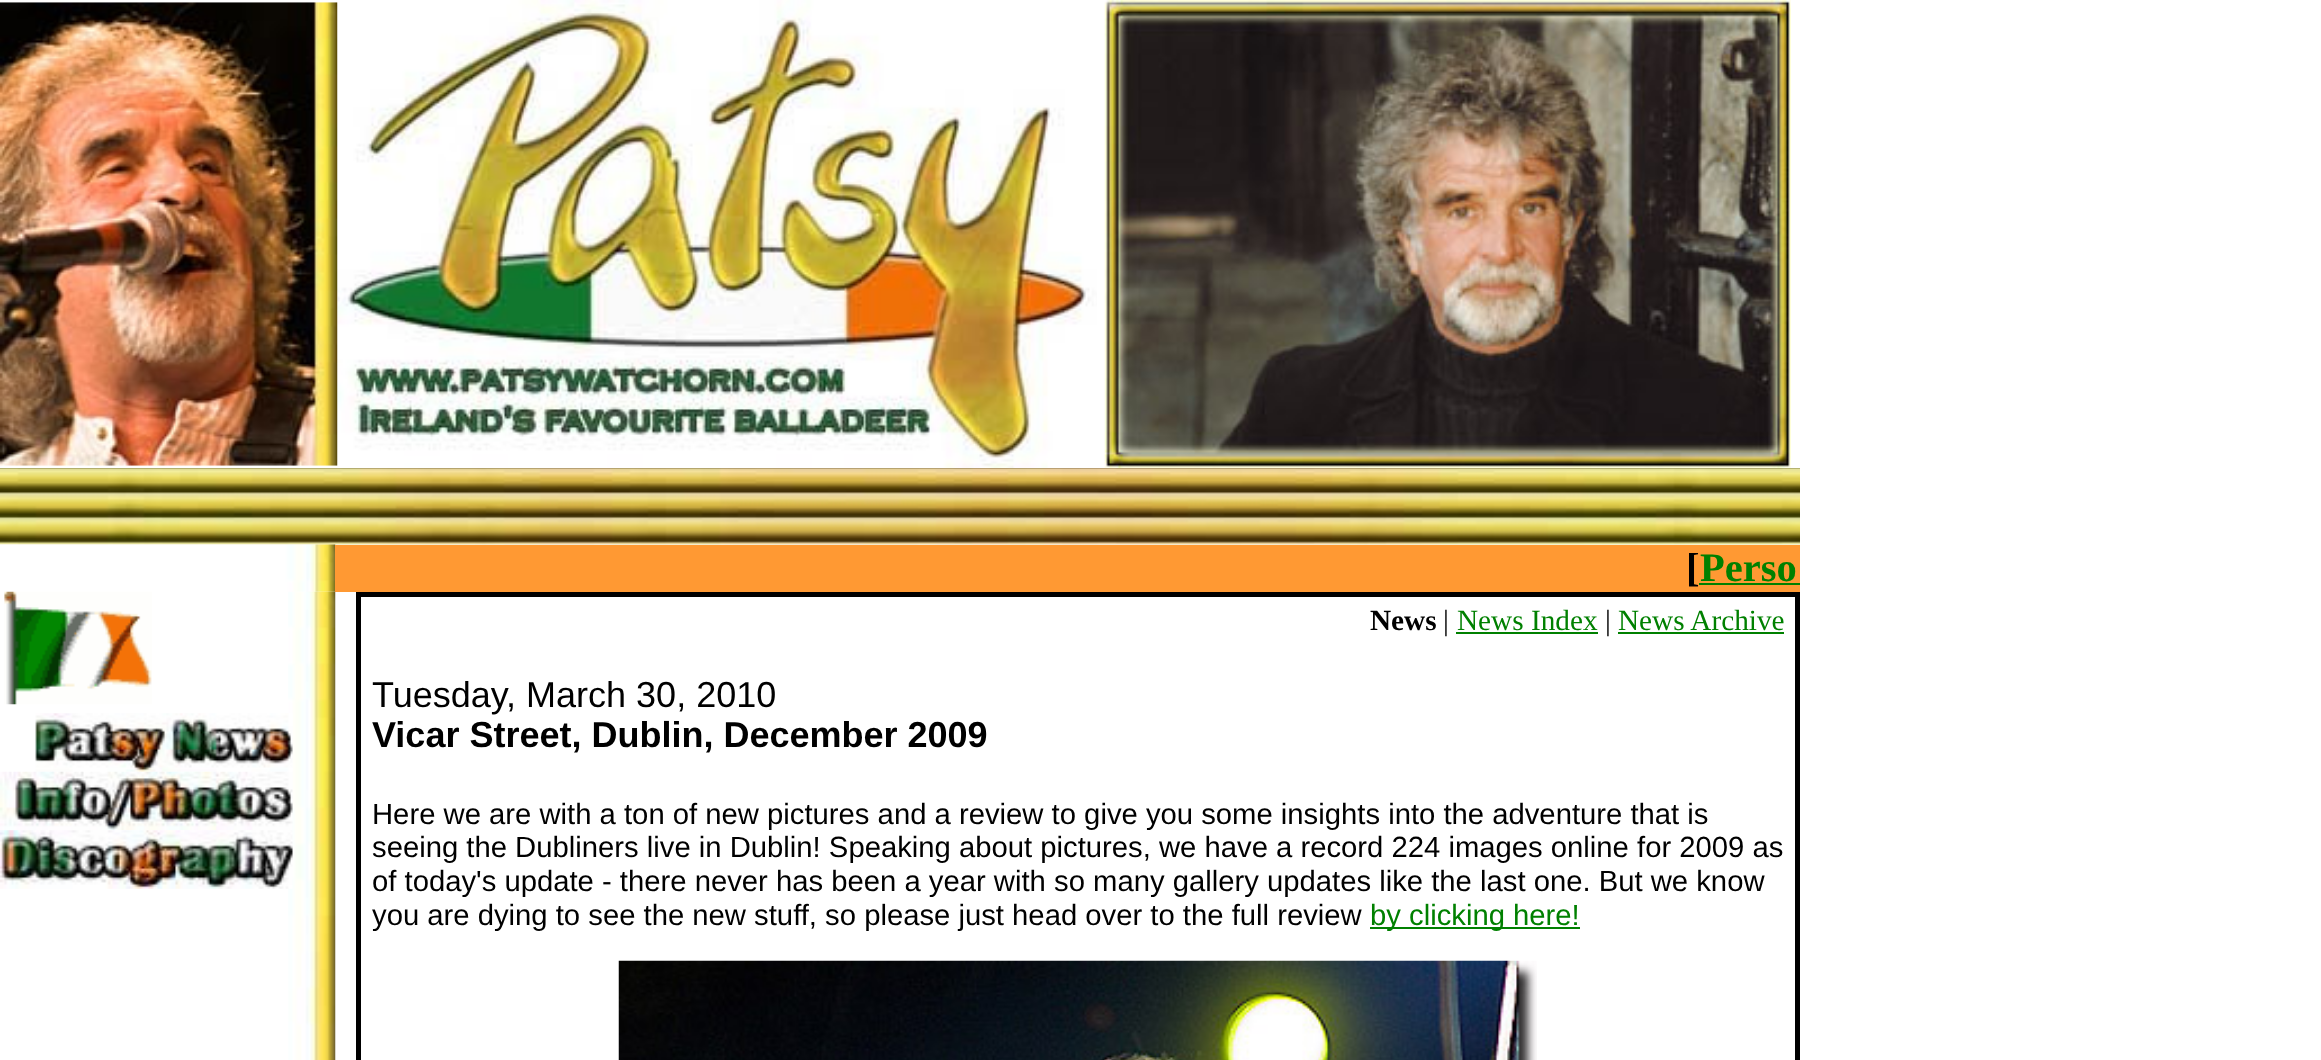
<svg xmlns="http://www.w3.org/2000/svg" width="2321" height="1060">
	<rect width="100%" height="100%" fill="#FFFFFF" />
	<image x="337" y="0" width="760" height="468" href="assets/img2.png" />
	<image x="0" y="2" width="338" height="464" href="assets/img1.png" />
	<image x="1104" y="0" width="687" height="468" href="assets/img3.png" />
	<image x="0" y="468" width="1800" height="77" href="assets/img4.png" />
	<image x="0" y="544" width="336" height="48" href="assets/img5.png" />
	<rect x="335" y="545" width="1465" height="47" fill="#FF9933" />
	<text x="1686" y="581" font-family="Liberation Serif" font-size="40.5" font-weight="700" fill="#000000">[</text>
	<text x="1700" y="581" font-family="Liberation Serif" font-size="40.5" font-weight="700" fill="#008000">Perso</text>
	<rect x="1699" y="583" width="101" height="2" fill="#008000" />
	<image x="288" y="591" width="48" height="469" href="assets/img6.png" />
	<image x="4" y="591" width="148" height="114" href="assets/img7.png" />
	<image x="35" y="713" width="258" height="59" href="assets/img8.png" />
	<image x="0" y="771" width="293" height="60" href="assets/img9.png" />
	<image x="0" y="830" width="293" height="59" href="assets/img10.png" />
	<rect x="358.5" y="594.5" width="1439" height="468" fill="none" stroke="#000000" stroke-width="5" />
	<text x="1370" y="630" font-family="Liberation Serif" font-size="29.25" font-weight="700" fill="#000000">News</text>
	<text x="1443" y="630" font-family="Liberation Serif" font-size="29.25" fill="#000000">|</text>
	<text x="1457" y="630" font-family="Liberation Serif" font-size="29.25" fill="#008000">News Index</text>
	<rect x="1456" y="632" width="142" height="2" fill="#008000" />
	<text x="1605" y="630" font-family="Liberation Serif" font-size="29.25" fill="#000000">|</text>
	<text x="1618" y="630" font-family="Liberation Serif" font-size="29.25" fill="#008000">News Archive</text>
	<rect x="1618" y="632" width="166" height="2" fill="#008000" />
	<text x="372" y="707" font-family="Liberation Sans" font-size="36" fill="#000000">Tuesday, March 30, 2010</text>
	<text x="372" y="747" font-family="Liberation Sans" font-size="36" font-weight="700" fill="#000000">Vicar Street, Dublin, December 2009</text>
	<g font-family="Liberation Sans" font-size="29.25" fill="#000000">
		<text x="372" y="824">Here we are with a ton of new pictures and a review to give you some insights into the adventure that is</text>
		<text x="372" y="857">seeing the Dubliners live in Dublin! Speaking about pictures, we have a record 224 images online for 2009 as</text>
		<text x="372" y="891">of today's update - there never has been a year with so many gallery updates like the last one. But we know</text>
		<text x="372" y="925">you are dying to see the new stuff, so please just head over to the full review</text>
	</g>
	<rect x="1370" y="927" width="210" height="2" fill="#008000" />
	<text x="1370" y="925" font-family="Liberation Sans" font-size="29.25" fill="#008000">by clicking here!</text>
	<image x="618" y="960" width="919" height="100" href="assets/img11.png" />
</svg>
